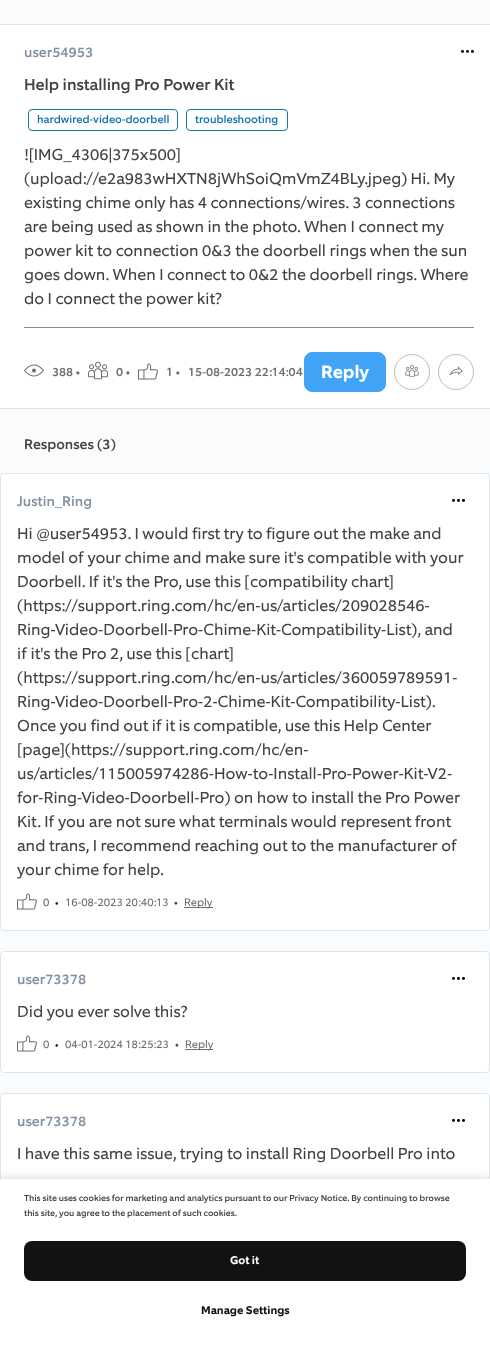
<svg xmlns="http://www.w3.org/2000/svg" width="490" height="1352">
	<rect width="100%" height="100%" fill="#FAFBFC" />
	<rect x="0" y="25" width="490" height="383" fill="#FFFFFF" />
	<rect x="0" y="24" width="490" height="1" fill="#DEE5EC" />
	<rect x="0" y="408" width="490" height="1" fill="#DEE5EC" />
	<text x="24" y="57" font-family="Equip" font-size="14" font-weight="500" fill="#81919F">user54953</text>
	<image x="461" y="49" width="13" height="4" href="assets/img1.png" />
	<text x="24" y="90" font-family="Equip" font-size="16" font-weight="500" fill="#424242">Help installing Pro Power Kit</text>
	<rect x="28.5" y="109.5" width="149" height="21" rx="3.5" fill="none" stroke="#1476AD" />
	<text x="37" y="123" font-family="Equip" font-size="11" font-weight="500" fill="#1476AD">hardwired-video-doorbell</text>
	<rect x="186.5" y="109.5" width="101" height="21" rx="3.5" fill="none" stroke="#1476AD" />
	<text x="195" y="123" font-family="Equip" font-size="11" font-weight="500" fill="#1476AD">troubleshooting</text>
	<g font-family="Equip" font-size="16" fill="#424242">
		<text x="24" y="160">![IMG_4306|375x500]</text>
		<text x="24" y="184">(upload://e2a983wHXTN8jWhSoiQmVmZ4BLy.jpeg) Hi. My</text>
		<text x="24" y="208">existing chime only has 4 connections/wires. 3 connections</text>
		<text x="24" y="232">are being used as shown in the photo. When I connect my</text>
		<text x="24" y="256">power kit to connection 0&amp;3 the doorbell rings when the sun</text>
		<text x="24" y="280">goes down. When I connect to 0&amp;2 the doorbell rings. Where</text>
		<text x="24" y="304">do I connect the power kit?</text>
	</g>
	<rect x="24" y="327" width="450" height="1" fill="#81919F" />
	<image x="24" y="364" width="20" height="13" href="assets/img2.png" />
	<text x="52" y="376" font-family="Equip" font-size="12" font-weight="500" fill="#6E6E6E">388 •</text>
	<image x="88" y="361" width="20" height="19" href="assets/img3.png" />
	<text x="116" y="376" font-family="Equip" font-size="12" font-weight="500" fill="#6E6E6E">0 •</text>
	<image x="138" y="363" width="20" height="17" href="assets/img4.png" />
	<g font-family="Equip" font-size="12" font-weight="500" fill="#6E6E6E">
		<text x="166" y="376">1 •</text>
		<text x="188" y="376">15-08-2023 22:14:04</text>
	</g>
	<rect x="304.5" y="352.5" width="81" height="39" rx="7.5" fill="#40A3F5" stroke="#40A3F5" />
	<text x="321" y="378" font-family="Equip" font-size="18" font-weight="700" fill="#FFFFFF">Reply</text>
	<circle cx="412" cy="372" r="17.5" fill="none" stroke="#BDBDBD" />
	<image x="405" y="365" width="14" height="12" href="assets/img5.png" />
	<circle cx="456" cy="372" r="17.5" fill="none" stroke="#BDBDBD" />
	<image x="449" y="366" width="14" height="10" href="assets/img6.png" />
	<text x="24" y="449" font-family="Equip" font-size="14" font-weight="500" fill="#424242">Responses (3)</text>
	<rect x="0.5" y="473.5" width="489" height="457" rx="3.5" fill="#FFFFFF" stroke="#DEE5EC" />
	<text x="17" y="506" font-family="Equip" font-size="14" font-weight="500" fill="#81919F">Justin_Ring</text>
	<image x="452" y="498" width="13" height="4" href="assets/img1.png" />
	<g font-family="Equip" font-size="16" fill="#424242">
		<text x="17" y="539">Hi @user54953. I would first try to figure out the make and</text>
		<text x="17" y="563">model of your chime and make sure it's compatible with your</text>
		<text x="17" y="587">Doorbell. If it's the Pro, use this [compatibility chart]</text>
		<text x="17" y="611">(https://support.ring.com/hc/en-us/articles/209028546-</text>
		<text x="17" y="635">Ring-Video-Doorbell-Pro-Chime-Kit-Compatibility-List), and</text>
		<text x="17" y="659">if it's the Pro 2, use this [chart]</text>
		<text x="17" y="683">(https://support.ring.com/hc/en-us/articles/360059789591-</text>
		<text x="17" y="707">Ring-Video-Doorbell-Pro-2-Chime-Kit-Compatibility-List).</text>
		<text x="17" y="731">Once you find out if it is compatible, use this Help Center</text>
		<text x="17" y="755">[page](https://support.ring.com/hc/en-</text>
		<text x="17" y="779">us/articles/115005974286-How-to-Install-Pro-Power-Kit-V2-</text>
		<text x="17" y="803">for-Ring-Video-Doorbell-Pro) on how to install the Pro Power</text>
		<text x="17" y="827">Kit. If you are not sure what terminals would represent front</text>
		<text x="17" y="851">and trans, I recommend reaching out to the manufacturer of</text>
		<text x="17" y="875">your chime for help.</text>
	</g>
	<image x="17" y="893" width="20" height="17" href="assets/img4.png" />
	<text x="43" y="906" font-family="Equip" font-size="11" fill="#6E6E6E">0</text>
	<text x="55" y="906" font-family="Equip" font-size="10" fill="#000000">•</text>
	<text x="65" y="906" font-family="Equip" font-size="11" fill="#6E6E6E">16-08-2023 20:40:13</text>
	<text x="174" y="906" font-family="Equip" font-size="11" fill="#424242">•</text>
	<rect x="184" y="907" width="29" height="1" fill="#6E6E6E" />
	<text x="184" y="906" font-family="Equip" font-size="11" fill="#6E6E6E">Reply</text>
	<rect x="0.5" y="951.5" width="489" height="121" rx="3.5" fill="#FFFFFF" stroke="#DEE5EC" />
	<text x="17" y="984" font-family="Equip" font-size="14" font-weight="500" fill="#81919F">user73378</text>
	<image x="452" y="976" width="13" height="4" href="assets/img1.png" />
	<text x="17" y="1017" font-family="Equip" font-size="16" fill="#424242">Did you ever solve this?</text>
	<image x="17" y="1035" width="20" height="17" href="assets/img4.png" />
	<text x="43" y="1048" font-family="Equip" font-size="11" fill="#6E6E6E">0</text>
	<text x="55" y="1048" font-family="Equip" font-size="10" fill="#000000">•</text>
	<text x="65" y="1048" font-family="Equip" font-size="11" fill="#6E6E6E">04-01-2024 18:25:23</text>
	<text x="175" y="1048" font-family="Equip" font-size="11" fill="#424242">•</text>
	<rect x="185" y="1049" width="28" height="1" fill="#6E6E6E" />
	<text x="185" y="1048" font-family="Equip" font-size="11" fill="#6E6E6E">Reply</text>
	<rect x="0.5" y="1093.5" width="489" height="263" rx="3.5" fill="#FFFFFF" stroke="#DEE5EC" />
	<text x="17" y="1126" font-family="Equip" font-size="14" font-weight="500" fill="#81919F">user73378</text>
	<image x="452" y="1118" width="13" height="4" href="assets/img1.png" />
	<text x="17" y="1159" font-family="Equip" font-size="16" fill="#424242">I have this same issue, trying to install Ring Doorbell Pro into</text>
	<rect x="0" y="1178" width="490" height="173" fill="#000000" fill-opacity="0.15" filter="blur(4px)" />
	<rect x="0" y="1179" width="490" height="173" fill="#FFFFFF" />
	<g font-family="Equip" font-size="8.75" font-weight="500" fill="#424242">
		<text x="24" y="1201">This site uses cookies for marketing and analytics pursuant to our Privacy Notice. By continuing to browse</text>
		<text x="24" y="1216">this site, you agree to the placement of such cookies.</text>
	</g>
	<rect x="24" y="1241" width="442" height="40" rx="8" fill="#121212" />
	<text x="230" y="1264" font-family="Equip" font-size="11.25" font-weight="700" fill="#FFFFFF">Got it</text>
	<text x="201" y="1314" font-family="Equip" font-size="11.25" font-weight="700" fill="#121212">Manage Settings</text>
</svg>
